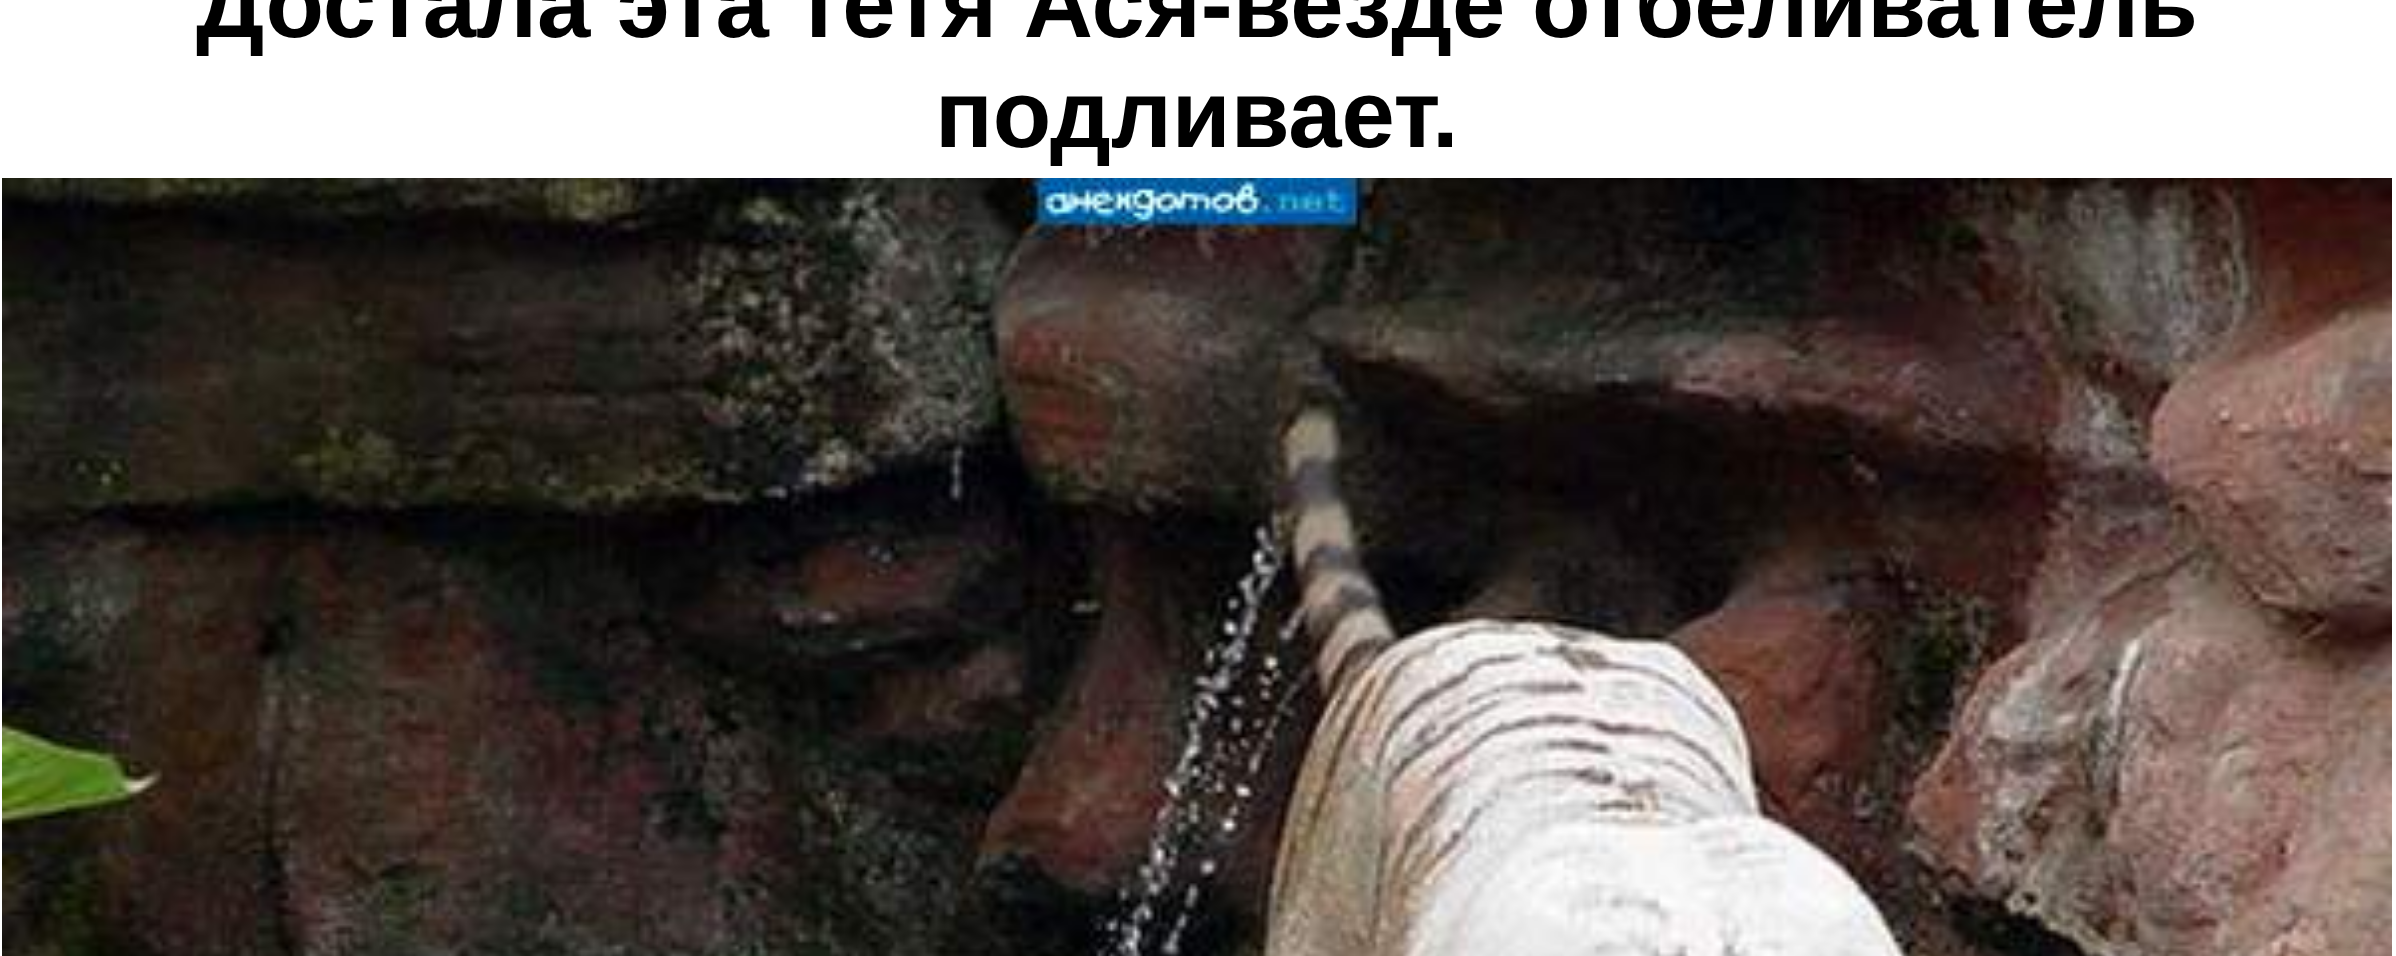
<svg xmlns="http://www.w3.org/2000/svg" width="2396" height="956">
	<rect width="100%" height="100%" fill="#FFFFFF" />
	<g font-family="Liberation Sans" font-size="95.8" font-weight="700" fill="#000000">
		<text x="196" y="37">Достала эта тетя Ася-везде отбеливатель</text>
		<text x="935" y="147">подливает.</text>
	</g>
	<image x="2" y="178" width="2390" height="778" href="assets/img1.png" />
</svg>
